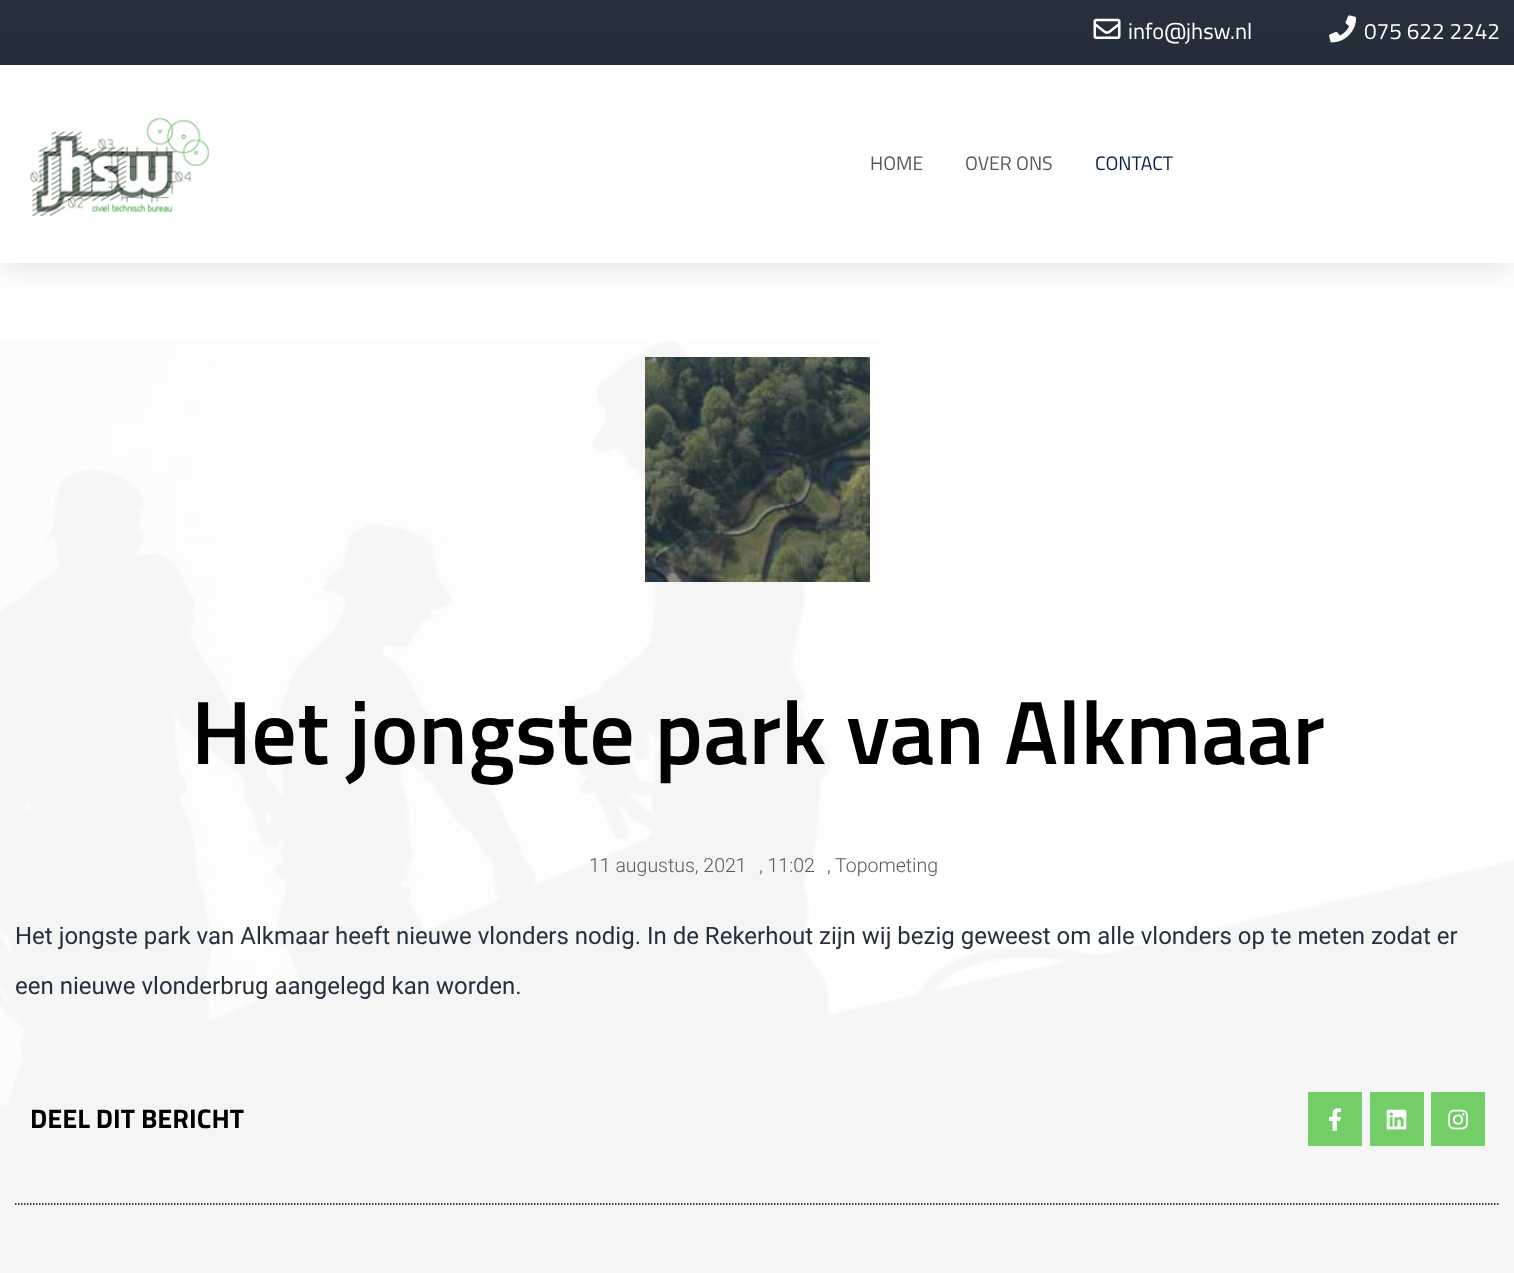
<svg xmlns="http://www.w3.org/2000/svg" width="1514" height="1273">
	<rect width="100%" height="100%" fill="#FFFFFF" />
	<rect x="0" y="0" width="1514" height="65" fill="#26303D" />
	<image x="1093" y="18" width="28" height="21" href="assets/img1.png" />
	<text x="1128" y="39" font-family="Titillium Web" font-size="22.5" fill="#FFFFFF">info@jhsw.nl</text>
	<image x="1329" y="15" width="28" height="28" href="assets/img2.png" />
	<text x="1364" y="39" font-family="Titillium Web" font-size="22.5" fill="#FFFFFF">075 622 2242</text>
	<rect x="0" y="65" width="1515" height="198" fill="#000000" fill-opacity="0.15" filter="blur(18px)" />
	<rect x="0" y="65" width="1514" height="198" fill="#FFFFFF" />
	<image x="30" y="118" width="180" height="98" href="assets/img3.png" />
	<g font-family="Titillium Web" font-size="19.5" fill="#54595F">
		<text x="870" y="170">HOME</text>
		<text x="965" y="170">OVER ONS</text>
	</g>
	<text x="1095" y="170" font-family="Titillium Web" font-size="19.5" fill="#061D47">CONTACT</text>
	<image x="0" y="341" width="1514" height="932" href="assets/img4.png" />
	<image x="645" y="357" width="225" height="225" href="assets/img5.png" />
	<text x="191" y="764" font-family="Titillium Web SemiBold" font-size="90" font-weight="600" fill="#000000">Het jongste park van Alkmaar</text>
	<g font-family="Roboto" font-size="19.5" font-weight="300" fill="#54595F">
		<text x="589" y="872">11 augustus, 2021</text>
		<text x="759" y="872">, 11:02</text>
		<text x="827" y="872">,</text>
		<text x="835" y="872">Topometing</text>
	</g>
	<g font-family="Roboto" font-size="24" fill="#26303D">
		<text x="15" y="944">Het jongste park van Alkmaar heeft nieuwe vlonders nodig. In de Rekerhout zijn wij bezig geweest om alle vlonders op te meten zodat er</text>
		<text x="15" y="994">een nieuwe vlonderbrug aangelegd kan worden.</text>
	</g>
	<text x="30" y="1128" font-family="Titillium Web" font-size="27" font-weight="700" fill="#000000">DEEL DIT BERICHT</text>
	<rect x="1308" y="1092" width="54" height="54" fill="#74CE68" />
	<image x="1329" y="1108" width="12" height="23" href="assets/img6.png" />
	<rect x="1370" y="1092" width="54" height="54" fill="#74CE68" />
	<image x="1386" y="1109" width="21" height="21" href="assets/img7.png" />
	<rect x="1431" y="1092" width="54" height="54" fill="#74CE68" />
	<image x="1448" y="1109" width="20" height="21" href="assets/img8.png" />
	<path d="M15 1204H1500" fill="none" stroke="#000000" stroke-width="1.5" stroke-dasharray="1.5 1.5" />
</svg>
